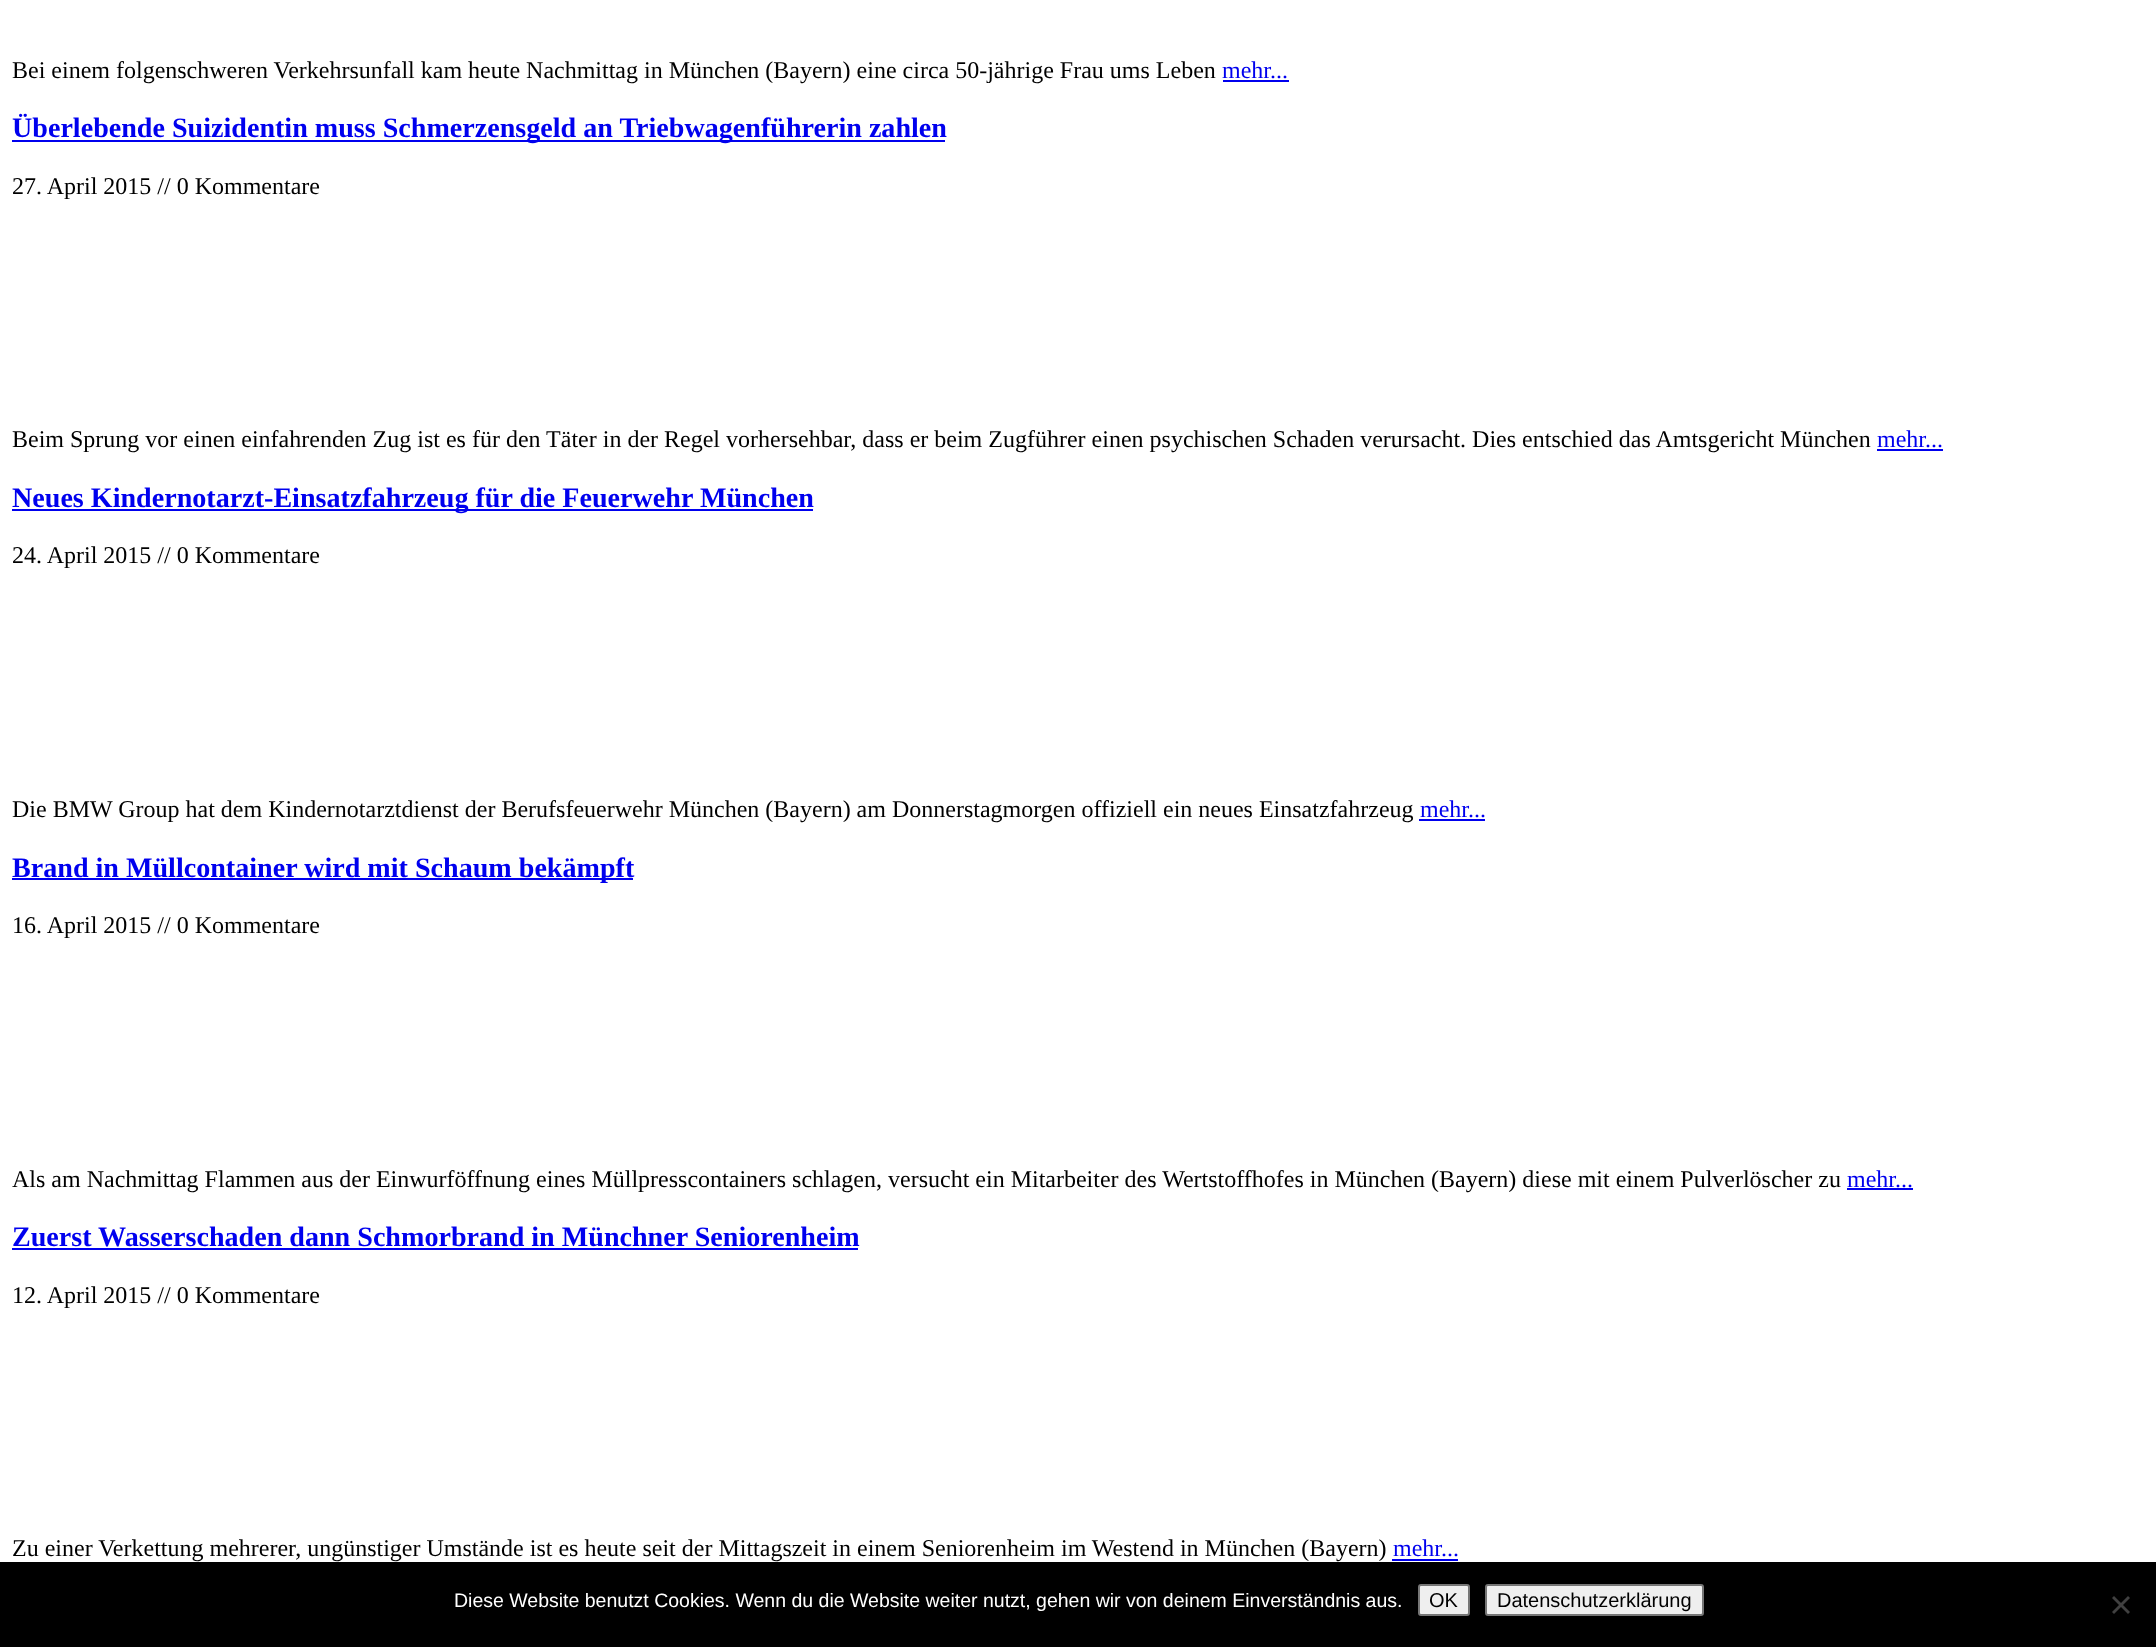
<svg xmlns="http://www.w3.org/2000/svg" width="2156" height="1647">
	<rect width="100%" height="100%" fill="#FFFFFF" />
	<text x="12" y="78" font-family="Liberation Serif" font-size="24" fill="#000000">Bei einem folgenschweren Verkehrsunfall kam heute Nachmittag in München (Bayern) eine circa 50-jährige Frau ums Leben</text>
	<text x="1222" y="78" font-family="Liberation Serif" font-size="24" fill="#0000EE">mehr...</text>
	<rect x="1223" y="80" width="66" height="2" fill="#0000EE" />
	<rect x="12" y="140" width="933" height="2" fill="#0000EE" />
	<text x="12" y="137" font-family="Liberation Serif" font-size="28.1" font-weight="700" fill="#0000EE">Überlebende Suizidentin muss Schmerzensgeld an Triebwagenführerin zahlen</text>
	<g font-family="Liberation Serif" font-size="24" fill="#000000">
		<text x="12" y="194">27. April 2015 // 0 Kommentare</text>
		<text x="12" y="447">Beim Sprung vor einen einfahrenden Zug ist es für den Täter in der Regel vorhersehbar, dass er beim Zugführer einen psychischen Schaden verursacht. Dies entschied das Amtsgericht München</text>
	</g>
	<text x="1877" y="447" font-family="Liberation Serif" font-size="24" fill="#0000EE">mehr...</text>
	<rect x="1877" y="449" width="66" height="2" fill="#0000EE" />
	<rect x="12" y="509" width="801" height="2" fill="#0000EE" />
	<text x="12" y="507" font-family="Liberation Serif" font-size="28.1" font-weight="700" fill="#0000EE">Neues Kindernotarzt-Einsatzfahrzeug für die Feuerwehr München</text>
	<g font-family="Liberation Serif" font-size="24" fill="#000000">
		<text x="12" y="563">24. April 2015 // 0 Kommentare</text>
		<text x="12" y="817">Die BMW Group hat dem Kindernotarztdienst der Berufsfeuerwehr München (Bayern) am Donnerstagmorgen offiziell ein neues Einsatzfahrzeug</text>
	</g>
	<text x="1420" y="817" font-family="Liberation Serif" font-size="24" fill="#0000EE">mehr...</text>
	<rect x="1419" y="819" width="66" height="2" fill="#0000EE" />
	<rect x="12" y="878" width="621" height="2" fill="#0000EE" />
	<text x="12" y="877" font-family="Liberation Serif" font-size="28.1" font-weight="700" fill="#0000EE">Brand in Müllcontainer wird mit Schaum bekämpft</text>
	<g font-family="Liberation Serif" font-size="24" fill="#000000">
		<text x="12" y="933">16. April 2015 // 0 Kommentare</text>
		<text x="12" y="1187">Als am Nachmittag Flammen aus der Einwurföffnung eines Müllpresscontainers schlagen, versucht ein Mitarbeiter des Wertstoffhofes in München (Bayern) diese mit einem Pulverlöscher zu</text>
	</g>
	<text x="1847" y="1187" font-family="Liberation Serif" font-size="24" fill="#0000EE">mehr...</text>
	<rect x="1847" y="1188" width="66" height="2" fill="#0000EE" />
	<text x="12" y="1246" font-family="Liberation Serif" font-size="28.1" font-weight="700" fill="#0000EE">Zuerst Wasserschaden dann Schmorbrand in Münchner Seniorenheim</text>
	<rect x="12" y="1248" width="846" height="2" fill="#0000EE" />
	<g font-family="Liberation Serif" font-size="24" fill="#000000">
		<text x="12" y="1303">12. April 2015 // 0 Kommentare</text>
		<text x="12" y="1556">Zu einer Verkettung mehrerer, ungünstiger Umstände ist es heute seit der Mittagszeit in einem Seniorenheim im Westend in München (Bayern)</text>
	</g>
	<text x="1393" y="1556" font-family="Liberation Serif" font-size="24" fill="#0000EE">mehr...</text>
	<rect x="1392" y="1559" width="66" height="2" fill="#0000EE" />
	<rect x="0" y="1562" width="2156" height="85" fill="#000000" />
	<text x="454" y="1607" font-family="Liberation Sans" font-size="19.5" fill="#FFFFFF">Diese Website benutzt Cookies. Wenn du die Website weiter nutzt, gehen wir von deinem Einverständnis aus.</text>
	<rect x="1419" y="1585" width="50" height="30" rx="2" fill="#EFEFEF" stroke="#767676" stroke-width="2" />
	<text x="1429" y="1607" font-family="Liberation Sans" font-size="20" fill="#000000">OK</text>
	<rect x="1486" y="1585" width="217" height="30" rx="2" fill="#EFEFEF" stroke="#767676" stroke-width="2" />
	<text x="1497" y="1607" font-family="Liberation Sans" font-size="20" fill="#000000">Datenschutzerklärung</text>
	<path d="M2128 1596L2130 1598L2114 1614L2112 1612Z" fill="#404040" />
	<path d="M2112 1598L2114 1596L2130 1612L2128 1614Z" fill="#404040" />
</svg>
